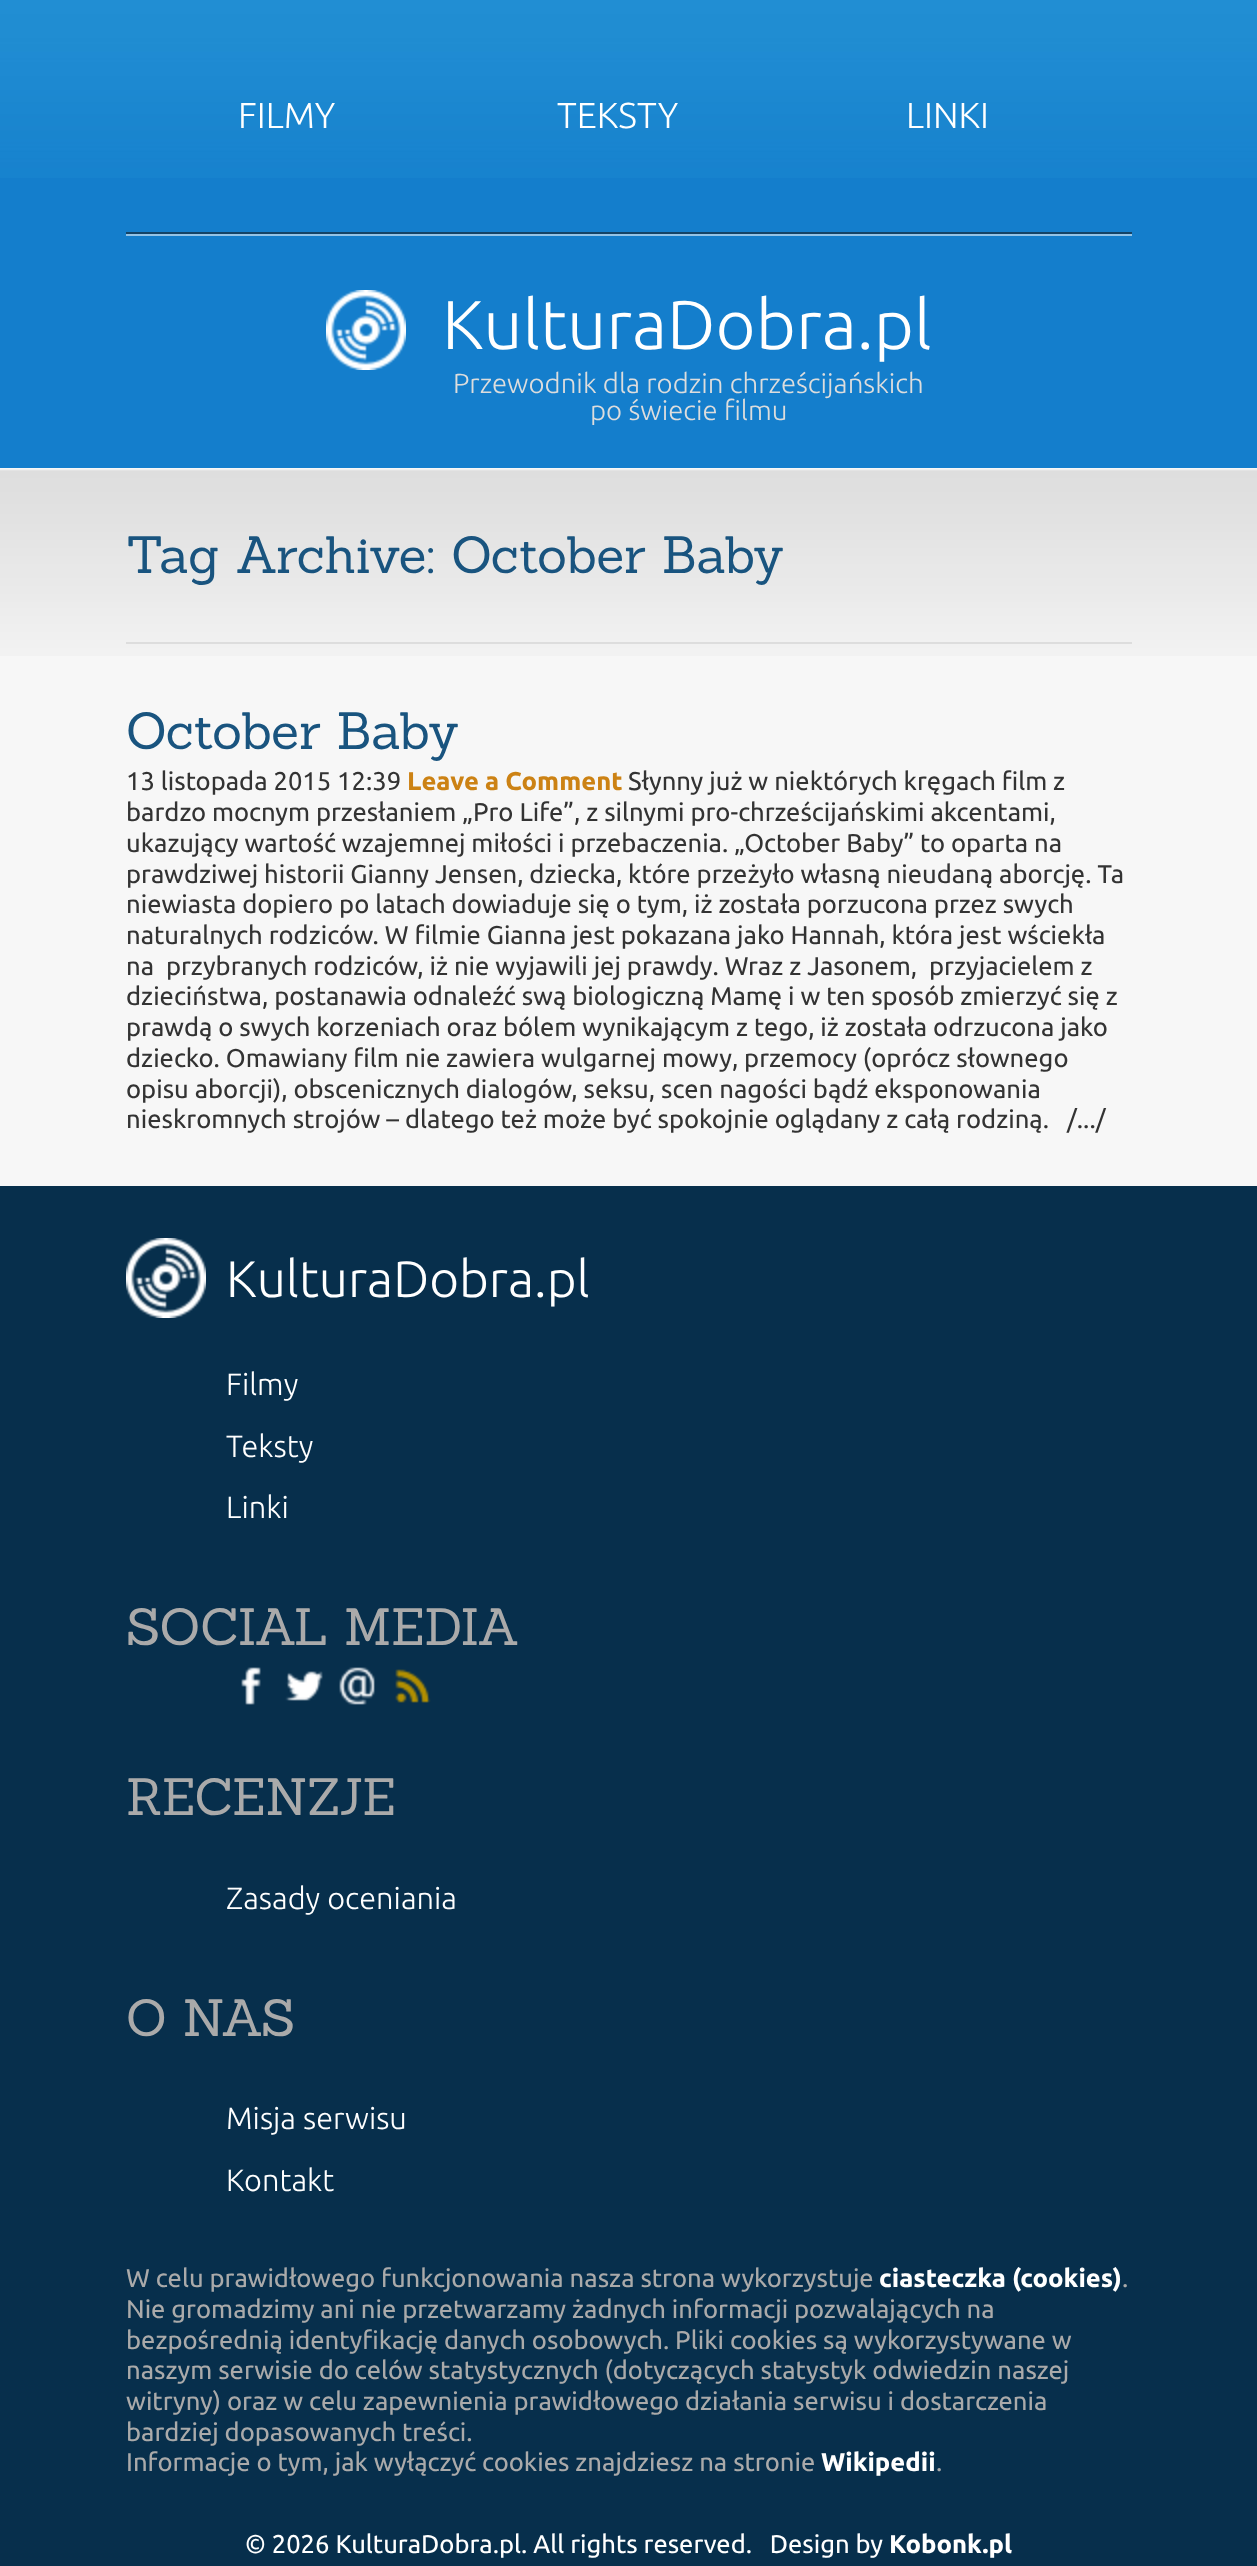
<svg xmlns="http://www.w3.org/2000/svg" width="1257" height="2566">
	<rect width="100%" height="100%" fill="#F7F7F7" />
	<rect x="0" y="178" width="1257" height="290" fill="#147ECC" />
	<image x="0" y="0" width="1257" height="178" href="assets/img1.png" />
	<rect x="126" y="232" width="1006" height="2" fill="#144366" />
	<g font-family="Ubuntu" font-size="36" font-weight="300" fill="#FFFFFF">
		<text x="238" y="128">FILMY</text>
		<text x="557" y="128">TEKSTY</text>
		<text x="906" y="128">LINKI</text>
	</g>
	<rect x="126" y="234" width="1006" height="2" fill="#94C3E6" />
	<image x="326" y="290" width="80" height="80" href="assets/img2.png" />
	<text x="442" y="349" font-family="Ubuntu" font-size="69" font-weight="300" fill="#FFFFFF">KulturaDobra.pl</text>
	<g font-family="Ubuntu" font-size="27.6" font-weight="300" fill="#DDDDDD">
		<text x="453" y="393">Przewodnik dla rodzin chrześcijańskich</text>
		<text x="590" y="420">po świecie filmu</text>
	</g>
	<image x="0" y="469" width="1257" height="187" href="assets/img3.png" />
	<rect x="126" y="642" width="1006" height="2" fill="#DDDDDD" />
	<g font-family="Sanchez" font-size="51.25" fill="#19547F">
		<text x="126" y="573">Tag Archive: October Baby</text>
		<text x="126" y="749">October Baby</text>
	</g>
	<text x="126" y="790" font-family="Ubuntu" font-size="25.6" fill="#333333">13 listopada 2015 12:39</text>
	<text x="407" y="790" font-family="Ubuntu" font-size="25.6" font-weight="700" fill="#CC8214">Leave a Comment</text>
	<g font-family="Ubuntu" font-size="25.6" fill="#333333">
		<text x="628" y="790">Słynny już w niektórych kręgach film z</text>
		<text x="126" y="821">bardzo mocnym przesłaniem „Pro Life”, z silnymi pro-chrześcijańskimi akcentami,</text>
		<text x="126" y="852">ukazujący wartość wzajemnej miłości i przebaczenia. „October Baby” to oparta na</text>
		<text x="126" y="883">prawdziwej historii Gianny Jensen, dziecka, które przeżyło własną nieudaną aborcję. Ta</text>
		<text x="126" y="913">niewiasta dopiero po latach dowiaduje się o tym, iż została porzucona przez swych</text>
		<text x="126" y="944">naturalnych rodziców. W filmie Gianna jest pokazana jako Hannah, która jest wściekła</text>
		<text x="126" y="975" xml:space="preserve">na  przybranych rodziców, iż nie wyjawili jej prawdy. Wraz z Jasonem,  przyjacielem z</text>
		<text x="126" y="1005">dzieciństwa, postanawia odnaleźć swą biologiczną Mamę i w ten sposób zmierzyć się z</text>
		<text x="126" y="1036">prawdą o swych korzeniach oraz bólem wynikającym z tego, iż została odrzucona jako</text>
		<text x="126" y="1067">dziecko. Omawiany film nie zawiera wulgarnej mowy, przemocy (oprócz słownego</text>
		<text x="126" y="1098">opisu aborcji), obscenicznych dialogów, seksu, scen nagości bądź eksponowania</text>
		<text x="126" y="1128">nieskromnych strojów – dlatego też może być spokojnie oglądany z całą rodziną.</text>
		<text x="1067" y="1128">/.../</text>
	</g>
	<rect x="0" y="1186" width="1257" height="1380" fill="#072F4C" />
	<image x="126" y="1238" width="80" height="80" href="assets/img4.png" />
	<text x="226" y="1297" font-family="Ubuntu" font-size="51.25" font-weight="300" fill="#FFFFFF">KulturaDobra.pl</text>
	<g font-family="Ubuntu" font-size="30.75" font-weight="300" fill="#FFFFFF">
		<text x="226" y="1395">Filmy</text>
		<text x="226" y="1457">Teksty</text>
		<text x="226" y="1518">Linki</text>
	</g>
	<text x="126" y="1645" font-family="Sanchez" font-size="51.25" fill="#AAAAAA">SOCIAL MEDIA</text>
	<image x="241" y="1667" width="20" height="38" href="assets/img5.png" />
	<image x="285" y="1671" width="38" height="30" href="assets/img6.png" />
	<image x="339" y="1667" width="36" height="38" href="assets/img7.png" />
	<image x="395" y="1669" width="36" height="34" href="assets/img8.png" />
	<text x="126" y="1815" font-family="Sanchez" font-size="51.25" fill="#AAAAAA">RECENZJE</text>
	<text x="226" y="1909" font-family="Ubuntu" font-size="30.75" font-weight="300" fill="#FFFFFF">Zasady oceniania</text>
	<text x="126" y="2036" font-family="Sanchez" font-size="51.25" fill="#AAAAAA">O NAS</text>
	<g font-family="Ubuntu" font-size="30.75" font-weight="300" fill="#FFFFFF">
		<text x="226" y="2129">Misja serwisu</text>
		<text x="226" y="2191">Kontakt</text>
	</g>
	<text x="126" y="2287" font-family="Ubuntu" font-size="25.6" fill="#AAAAAA">W celu prawidłowego funkcjonowania nasza strona wykorzystuje</text>
	<text x="879" y="2287" font-family="Ubuntu" font-size="25.6" font-weight="700" fill="#FFFFFF">ciasteczka (cookies)</text>
	<g font-family="Ubuntu" font-size="25.6" fill="#AAAAAA">
		<text x="1122" y="2287">.</text>
		<text x="126" y="2318">Nie gromadzimy ani nie przetwarzamy żadnych informacji pozwalających na</text>
		<text x="126" y="2349">bezpośrednią identyfikację danych osobowych. Pliki cookies są wykorzystywane w</text>
		<text x="126" y="2379">naszym serwisie do celów statystycznych (dotyczących statystyk odwiedzin naszej</text>
		<text x="126" y="2410">witryny) oraz w celu zapewnienia prawidłowego działania serwisu i dostarczenia</text>
		<text x="126" y="2441">bardziej dopasowanych treści.</text>
		<text x="126" y="2471">Informacje o tym, jak wyłączyć cookies znajdziesz na stronie</text>
	</g>
	<text x="821" y="2471" font-family="Ubuntu" font-size="25.6" font-weight="700" fill="#FFFFFF">Wikipedii</text>
	<text x="936" y="2471" font-family="Ubuntu" font-size="25.6" fill="#AAAAAA">.</text>
	<text x="245" y="2553" font-family="Ubuntu" font-size="25.6" fill="#FFFFFF" xml:space="preserve">© 2026 KulturaDobra.pl. All rights reserved.   Design by</text>
	<text x="889" y="2553" font-family="Ubuntu" font-size="25.6" font-weight="700" fill="#FFFFFF">Kobonk.pl</text>
</svg>
